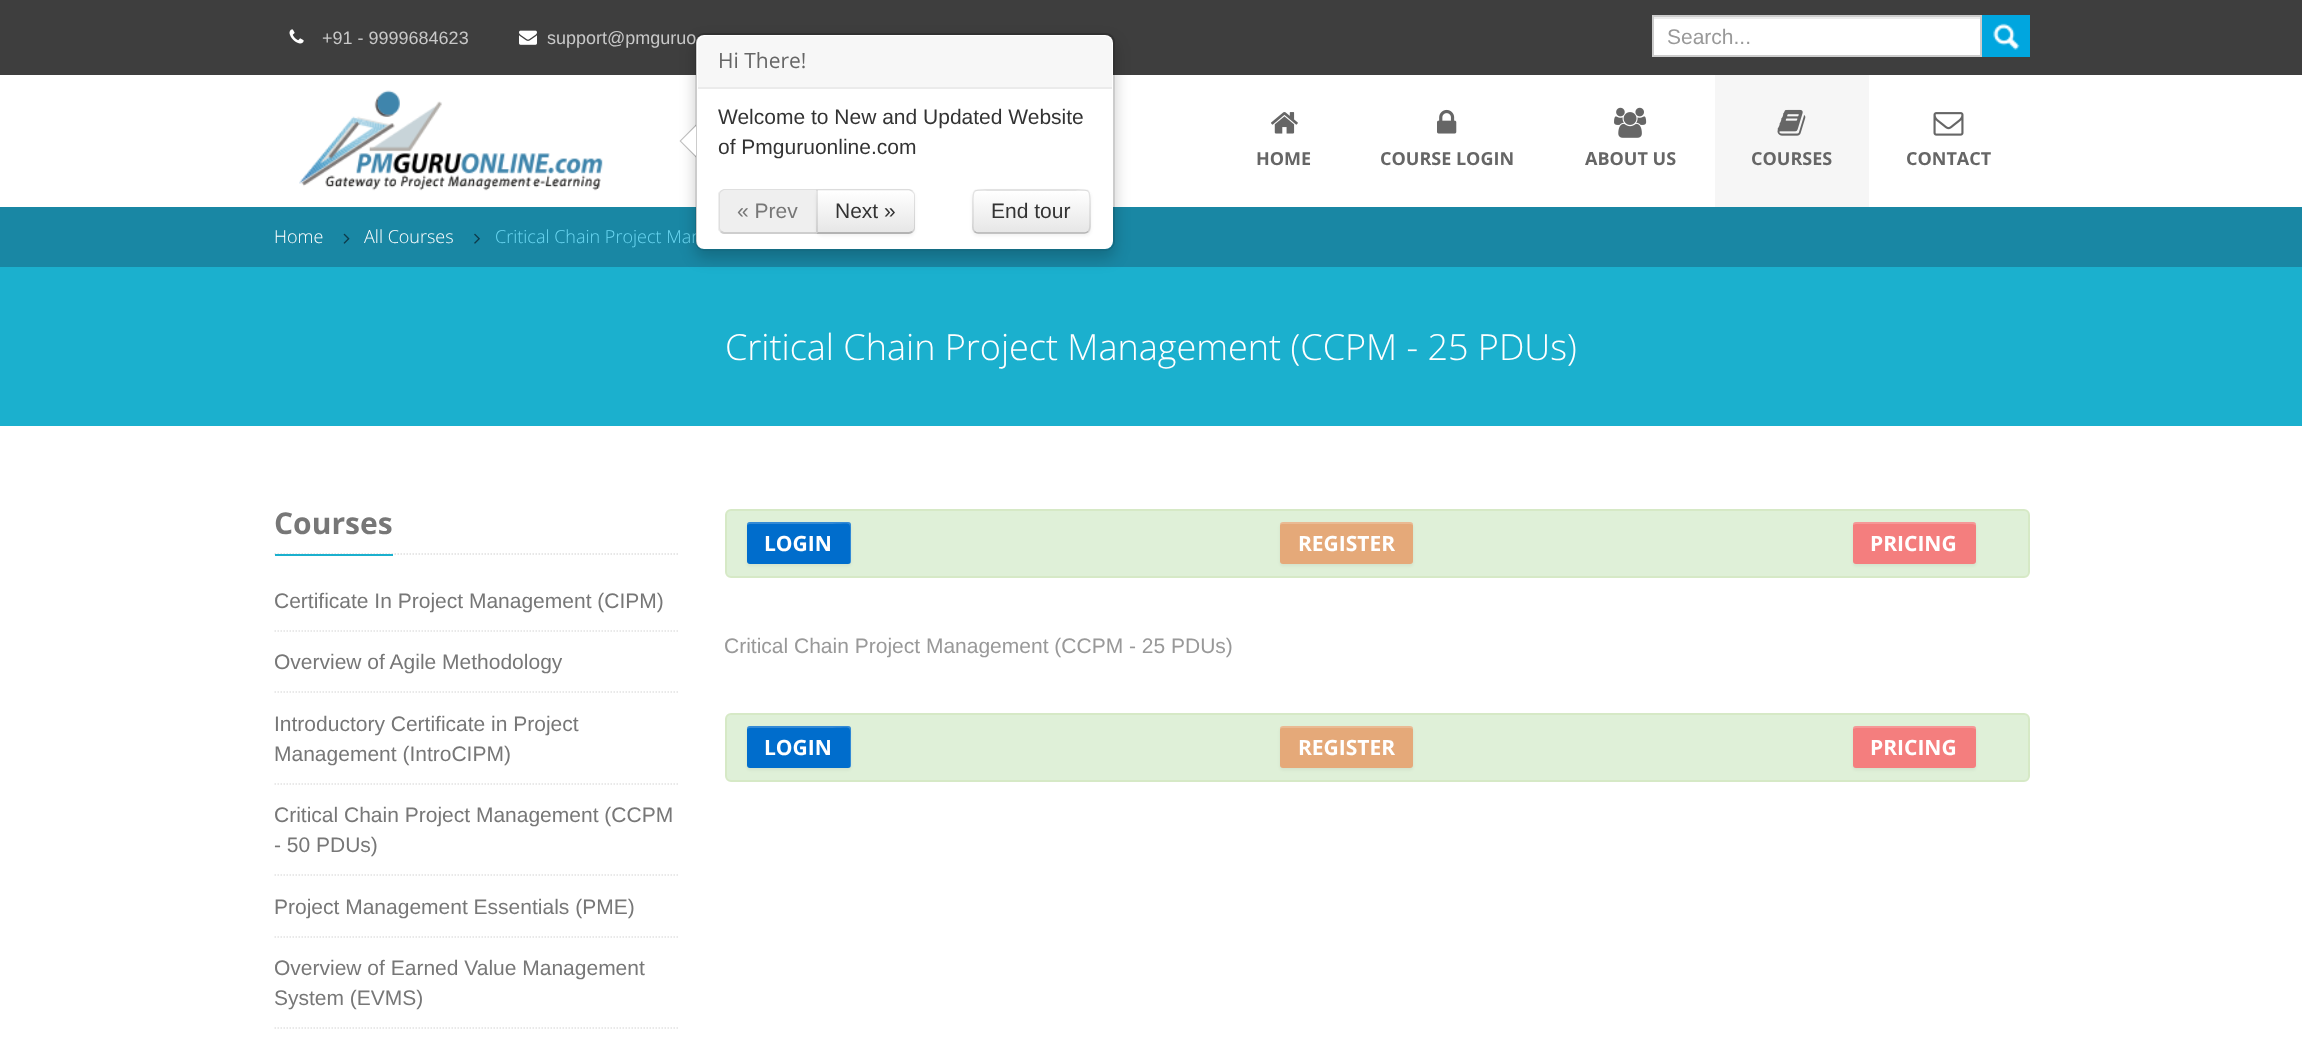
<svg xmlns="http://www.w3.org/2000/svg" width="2302" height="1061">
	<defs>
		<clipPath id="clip1"><path d="M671 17H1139V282H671ZM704 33H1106C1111 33 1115 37 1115 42V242C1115 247 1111 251 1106 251H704C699 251 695 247 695 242V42C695 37 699 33 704 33Z" clip-rule="evenodd" /></clipPath>
		<clipPath id="clip2"><path d="M816 189H909C912.5 189 915 191.5 915 195V228C915 231.5 912.5 234 909 234H816Z" /></clipPath>
		<linearGradient id="g1" gradientUnits="userSpaceOnUse" x1="866" y1="191" x2="866" y2="233"><stop offset="0" stop-color="#FFFFFF" /><stop offset="1" stop-color="#E6E6E6" /></linearGradient>
		<clipPath id="clip3"><rect x="972" y="189" width="119" height="45" rx="6" /></clipPath>
		<linearGradient id="g2" gradientUnits="userSpaceOnUse" x1="1031" y1="191" x2="1031" y2="233"><stop offset="0" stop-color="#FFFFFF" /><stop offset="1" stop-color="#E6E6E6" /></linearGradient>
	</defs>
	<rect width="100%" height="100%" fill="#FFFFFF" />
	<rect x="0" y="0" width="2302" height="75" fill="#3E3E3E" />
	<image x="289" y="29" width="15" height="15" href="assets/img1.png" />
	<text x="322" y="44" font-family="Liberation Sans" font-size="18" fill="#C8C8C8">+91 - 9999684623</text>
	<image x="519" y="30" width="18" height="15" href="assets/img2.png" />
	<text x="547" y="44" font-family="Liberation Sans" font-size="18" fill="#C8C8C8">support@pmguruo</text>
	<rect x="1654" y="19" width="326" height="36" fill="#FFFFFF" />
	<rect x="1653" y="17" width="327" height="2" fill="#ECECEC" />
	<rect x="1653" y="16" width="328" height="40" fill="none" stroke="#CCCCCC" stroke-width="2" />
	<text x="1667" y="44" font-family="Liberation Sans" font-size="21" fill="#999999">Search...</text>
	<rect x="1982" y="15" width="48" height="42" fill="#00A6DF" />
	<image x="1993" y="23" width="27" height="27" href="assets/img3.png" />
	<image x="299" y="90" width="304" height="101" href="assets/img4.png" />
	<image x="1271" y="112" width="27" height="22" href="assets/img5.png" />
	<text x="1256" y="165" font-family="Open Sans" font-size="18" font-weight="700" fill="#666666">HOME</text>
	<image x="1437" y="109" width="20" height="25" href="assets/img6.png" />
	<text x="1380" y="165" font-family="Open Sans" font-size="18" font-weight="700" fill="#666666">COURSE LOGIN</text>
	<image x="1614" y="107" width="33" height="31" href="assets/img7.png" />
	<text x="1585" y="165" font-family="Open Sans" font-size="18" font-weight="700" fill="#666666">ABOUT US</text>
	<rect x="1715" y="75" width="154" height="132" fill="#F6F6F6" />
	<image x="1777" y="109" width="29" height="27" href="assets/img8.png" />
	<text x="1751" y="165" font-family="Open Sans" font-size="18" font-weight="700" fill="#666666">COURSES</text>
	<image x="1933" y="112" width="31" height="24" href="assets/img9.png" />
	<text x="1906" y="165" font-family="Open Sans" font-size="18" font-weight="700" fill="#666666">CONTACT</text>
	<rect x="0" y="207" width="2302" height="60" fill="#1987A4" />
	<text x="274" y="243" font-family="Open Sans" font-size="18" font-weight="300" fill="#FFFFFF">Home</text>
	<image x="343" y="233" width="7" height="11" href="assets/img10.png" />
	<text x="364" y="243" font-family="Open Sans" font-size="18" font-weight="300" fill="#FFFFFF">All Courses</text>
	<image x="474" y="233" width="6" height="11" href="assets/img11.png" />
	<text x="495" y="243" font-family="Open Sans" font-size="18" font-weight="300" fill="#6BD7F2">Critical Chain Project Man</text>
	<rect x="0" y="267" width="2302" height="159" fill="#1BB0CE" />
	<text x="725" y="360" font-family="Open Sans" font-size="36" font-weight="300" fill="#FFFFFF">Critical Chain Project Management (CCPM - 25 PDUs)</text>
	<path d="M274.5 554H679.5" fill="none" stroke="#DFDFDF" stroke-width="1.5" stroke-dasharray="1.5 1.5" />
	<rect x="275" y="554" width="118" height="2" fill="#1BB0CE" />
	<text x="274" y="534" font-family="Open Sans" font-size="30" font-weight="700" fill="#777777">Courses</text>
	<path d="M274.5 631H679.5" fill="none" stroke="#E2E2E2" stroke-width="1.5" stroke-dasharray="1.5 1.5" />
	<text x="274" y="608" font-family="Liberation Sans" font-size="21" fill="#777777">Certificate In Project Management (CIPM)</text>
	<path d="M274.5 692H679.5" fill="none" stroke="#E2E2E2" stroke-width="1.5" stroke-dasharray="1.5 1.5" />
	<text x="274" y="669" font-family="Liberation Sans" font-size="21" fill="#777777">Overview of Agile Methodology</text>
	<path d="M274.5 784H679.5" fill="none" stroke="#E2E2E2" stroke-width="1.5" stroke-dasharray="1.5 1.5" />
	<g font-family="Liberation Sans" font-size="21" fill="#777777">
		<text x="274" y="731">Introductory Certificate in Project</text>
		<text x="274" y="761">Management (IntroCIPM)</text>
	</g>
	<path d="M274.5 875H679.5" fill="none" stroke="#E2E2E2" stroke-width="1.5" stroke-dasharray="1.5 1.5" />
	<g font-family="Liberation Sans" font-size="21" fill="#777777">
		<text x="274" y="822">Critical Chain Project Management (CCPM</text>
		<text x="274" y="852">- 50 PDUs)</text>
	</g>
	<path d="M274.5 937H679.5" fill="none" stroke="#E2E2E2" stroke-width="1.5" stroke-dasharray="1.5 1.5" />
	<text x="274" y="914" font-family="Liberation Sans" font-size="21" fill="#777777">Project Management Essentials (PME)</text>
	<path d="M274.5 1028H679.5" fill="none" stroke="#E2E2E2" stroke-width="1.5" stroke-dasharray="1.5 1.5" />
	<g font-family="Liberation Sans" font-size="21" fill="#777777">
		<text x="274" y="975">Overview of Earned Value Management</text>
		<text x="274" y="1005">System (EVMS)</text>
	</g>
	<rect x="726" y="510" width="1303" height="67" rx="5" fill="#DFF0D8" stroke="#D6E9C6" stroke-width="2" />
	<rect x="747" y="524" width="104" height="42" rx="3" fill="#000000" fill-opacity="0.05" filter="blur(1.5px)" />
	<rect x="747" y="522" width="104" height="42" rx="3" fill="#006DCC" />
	<path d="M750 524H832C853 524 850 520 850 538V563C851 563 851 562 851 561V525C851 523 850 522 848 522H750C748 522 747 523 747 525V526C747 525 748 524 750 524Z" fill="#FFFFFF" fill-opacity="0.2" />
	<text x="764" y="551" font-family="Open Sans" font-size="21" font-weight="700" fill="#FFFFFF">LOGIN</text>
	<rect x="1280" y="524" width="133" height="42" rx="3" fill="#000000" fill-opacity="0.05" filter="blur(1.5px)" />
	<rect x="1280" y="522" width="133" height="42" rx="3" fill="#E5A979" />
	<path d="M1282 524H1410C1412 524 1413 525 1413 526C1413 524 1413 522 1411 522H1282C1280 522 1280 524 1280 526C1280 525 1281 524 1282 524Z" fill="#FFFFFF" fill-opacity="0.2" />
	<text x="1298" y="551" font-family="Open Sans" font-size="21" font-weight="700" fill="#FFFFFF">REGISTER</text>
	<rect x="1853" y="524" width="123" height="42" rx="3" fill="#000000" fill-opacity="0.05" filter="blur(1.5px)" />
	<rect x="1853" y="522" width="123" height="42" rx="3" fill="#F47E7E" />
	<path d="M1856 524H1972C1974 524 1976 525 1976 526V525C1976 523 1975 522 1973 522H1856C1854 522 1853 523 1853 525Z" fill="#FFFFFF" fill-opacity="0.2" />
	<text x="1870" y="551" font-family="Open Sans" font-size="21" font-weight="700" fill="#FFFFFF">PRICING</text>
	<text x="724" y="653" font-family="Liberation Sans" font-size="21" fill="#999999">Critical Chain Project Management (CCPM - 25 PDUs)</text>
	<rect x="726" y="714" width="1303" height="67" rx="5" fill="#DFF0D8" stroke="#D6E9C6" stroke-width="2" />
	<rect x="747" y="728" width="104" height="42" rx="3" fill="#000000" fill-opacity="0.05" filter="blur(1.5px)" />
	<rect x="747" y="726" width="104" height="42" rx="3" fill="#006DCC" />
	<path d="M750 728H832C853 728 850 724 850 742V767C851 767 851 766 851 765V729C851 727 850 726 848 726H750C748 726 747 727 747 729V730C747 729 748 728 750 728Z" fill="#FFFFFF" fill-opacity="0.2" />
	<text x="764" y="755" font-family="Open Sans" font-size="21" font-weight="700" fill="#FFFFFF">LOGIN</text>
	<rect x="1280" y="728" width="133" height="42" rx="3" fill="#000000" fill-opacity="0.05" filter="blur(1.5px)" />
	<rect x="1280" y="726" width="133" height="42" rx="3" fill="#E5A979" />
	<path d="M1282 728H1410C1412 728 1413 729 1413 730C1413 728 1413 726 1411 726H1282C1280 726 1280 728 1280 730C1280 729 1281 728 1282 728Z" fill="#FFFFFF" fill-opacity="0.2" />
	<text x="1298" y="755" font-family="Open Sans" font-size="21" font-weight="700" fill="#FFFFFF">REGISTER</text>
	<rect x="1853" y="728" width="123" height="42" rx="3" fill="#000000" fill-opacity="0.05" filter="blur(1.5px)" />
	<rect x="1853" y="726" width="123" height="42" rx="3" fill="#F47E7E" />
	<path d="M1856 728H1972C1974 728 1976 729 1976 730V729C1976 727 1975 726 1973 726H1856C1854 726 1853 727 1853 729Z" fill="#FFFFFF" fill-opacity="0.2" />
	<text x="1870" y="755" font-family="Open Sans" font-size="21" font-weight="700" fill="#FFFFFF">PRICING</text>
	<g clip-path="url(#clip1)">
		<rect x="695" y="41" width="420" height="217" rx="9" fill="#000000" fill-opacity="0.2" filter="blur(7.5px)" />
	</g>
	<rect x="696" y="35" width="417" height="214" rx="8" fill="#FFFFFF" />
	<rect x="696" y="34" width="418" height="216" rx="8" fill="none" stroke="#000000" stroke-opacity="0.2" stroke-width="2" />
	<path d="M706 36H1104C1108.5 36 1112 39.5 1112 44V89H698V44C698 39.5 701.5 36 706 36Z" fill="#F7F7F7" />
	<rect x="698" y="87" width="414" height="2" fill="#EBEBEB" />
	<text x="718" y="68" font-family="Open Sans" font-size="21" fill="#666666">Hi There!</text>
	<path d="M696 124.5V157.5L679.5 141Z" fill="#000000" fill-opacity="0.25" />
	<path d="M696 126V156L681 141Z" fill="#FFFFFF" />
	<g font-family="Liberation Sans" font-size="21" fill="#333333">
		<text x="718" y="124">Welcome to New and Updated Website</text>
		<text x="718" y="154">of Pmguruonline.com</text>
	</g>
	<path d="M725 189H818V234H725C721.5 234 719 231.5 719 228V195C719 191.5 721.5 189 725 189Z" fill="#EFEFEF" />
	<path d="M724 189C723 189 721 190 720 191L721 192L724 190H816L818 189Z" fill="#595959" fill-opacity="0.1" />
	<path d="M818 234L816 232H724L722 231L720 232C721 233 723 234 724 234Z" fill="#CECECE" />
	<path d="M718 193L720 191L721 192C720 193 720 194 720 195V228C720 229 721 230 722 231L720 232L718 230Z" fill="#595959" fill-opacity="0.1" />
	<text x="737" y="218" font-family="Liberation Sans" font-size="21" fill="#777777">« Prev</text>
	<rect x="816" y="191" width="99" height="45" rx="6" fill="#000000" fill-opacity="0.05" filter="blur(1.5px)" />
	<path d="M816 189H909C912.5 189 915 191.5 915 195V228C915 231.5 912.5 234 909 234H816Z" fill="#F5F5F5" />
	<g clip-path="url(#clip2)">
		<rect x="816" y="191" width="99" height="42" fill="url(#g1)" />
	</g>
	<path d="M816 189L818 191V190H909L912 192L913 191C912 190 910 189 909 189Z" fill="#000000" fill-opacity="0.1" />
	<path d="M915 228V195C915 194 914 192 913 191L912 192C913 193 914 194 914 195V228C914 229 913 230 912 231L913 232C914 231 915 230 915 228Z" fill="#000000" fill-opacity="0.1" />
	<path d="M909 234C910 234 912 233 913 232L912 231L909 232H818L816 234Z" fill="#B3B3B3" />
	<path d="M816 189V234L818 232V191Z" fill="#000000" fill-opacity="0.1" />
	<text x="835" y="218" font-family="Liberation Sans" font-size="21" fill="#333333">Next »</text>
	<rect x="972" y="191" width="119" height="45" rx="6" fill="#000000" fill-opacity="0.05" filter="blur(1.5px)" />
	<rect x="972" y="189" width="119" height="45" rx="6" fill="#F5F5F5" />
	<g clip-path="url(#clip3)">
		<rect x="972" y="191" width="119" height="42" fill="url(#g2)" />
	</g>
	<path d="M1088 231.5C1087 232.5 1086 233 1084.5 233H978C976.5 233 975.5 232.5 974.5 231.5" fill="none" stroke="#B3B3B3" stroke-width="1.5" />
	<path d="M974.5 231.5C972 229.5 973 225.5 973 222.5V211.5C973 186.5 969.5 190 996 190H1067C1093 190 1090 186.5 1090 211.5V222.5C1090 225.5 1090.5 229.5 1088 231.5" fill="none" stroke="#000000" stroke-opacity="0.1" stroke-width="1.5" />
	<text x="991" y="218" font-family="Liberation Sans" font-size="21" fill="#333333">End tour</text>
</svg>
